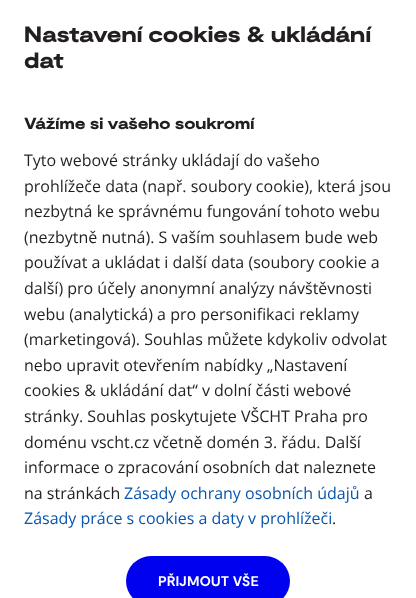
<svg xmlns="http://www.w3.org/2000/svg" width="416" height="598">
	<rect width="100%" height="100%" fill="#FFFFFF" />
	<g font-family="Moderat" font-size="22" font-weight="900" fill="#231F20">
		<text x="24" y="42">Nastavení cookies &amp; ukládání</text>
		<text x="24" y="68">dat</text>
	</g>
	<text x="24" y="129" font-family="Moderat" font-size="16" font-weight="900" fill="#231F20">Vážíme si vašeho soukromí</text>
	<g font-family="Open Sans" font-size="16" fill="#231F20">
		<text x="24" y="166">Tyto webové stránky ukládají do vašeho</text>
		<text x="24" y="192">prohlížeče data (např. soubory cookie), která jsou</text>
		<text x="24" y="217">nezbytná ke správnému fungování tohoto webu</text>
		<text x="24" y="243">(nezbytně nutná). S vaším souhlasem bude web</text>
		<text x="24" y="268">používat a ukládat i další data (soubory cookie a</text>
		<text x="24" y="294">další) pro účely anonymní analýzy návštěvnosti</text>
		<text x="24" y="320">webu (analytická) a pro personifikaci reklamy</text>
		<text x="24" y="345">(marketingová). Souhlas můžete kdykoliv odvolat</text>
		<text x="24" y="371">nebo upravit otevřením nabídky „Nastavení</text>
		<text x="24" y="396">cookies &amp; ukládání dat“ v dolní části webové</text>
		<text x="24" y="422">stránky. Souhlas poskytujete VŠCHT Praha pro</text>
		<text x="24" y="448">doménu vscht.cz včetně domén 3. řádu. Další</text>
		<text x="24" y="473">informace o zpracování osobních dat naleznete</text>
		<text x="24" y="499">na stránkách</text>
	</g>
	<text x="124" y="499" font-family="Open Sans" font-size="16" fill="#0855AF">Zásady ochrany osobních údajů</text>
	<text x="364" y="499" font-family="Open Sans" font-size="16" fill="#231F20">a</text>
	<text x="24" y="524" font-family="Open Sans" font-size="16" fill="#0855AF">Zásady práce s cookies a daty v prohlížeči</text>
	<text x="332" y="524" font-family="Open Sans" font-size="16" fill="#231F20">.</text>
	<rect x="126" y="556" width="164" height="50" rx="25" fill="#0001EF" />
	<text x="158" y="586" font-family="Moderat" font-size="14" font-weight="700" fill="#FFFFFF">PŘIJMOUT VŠE</text>
</svg>
